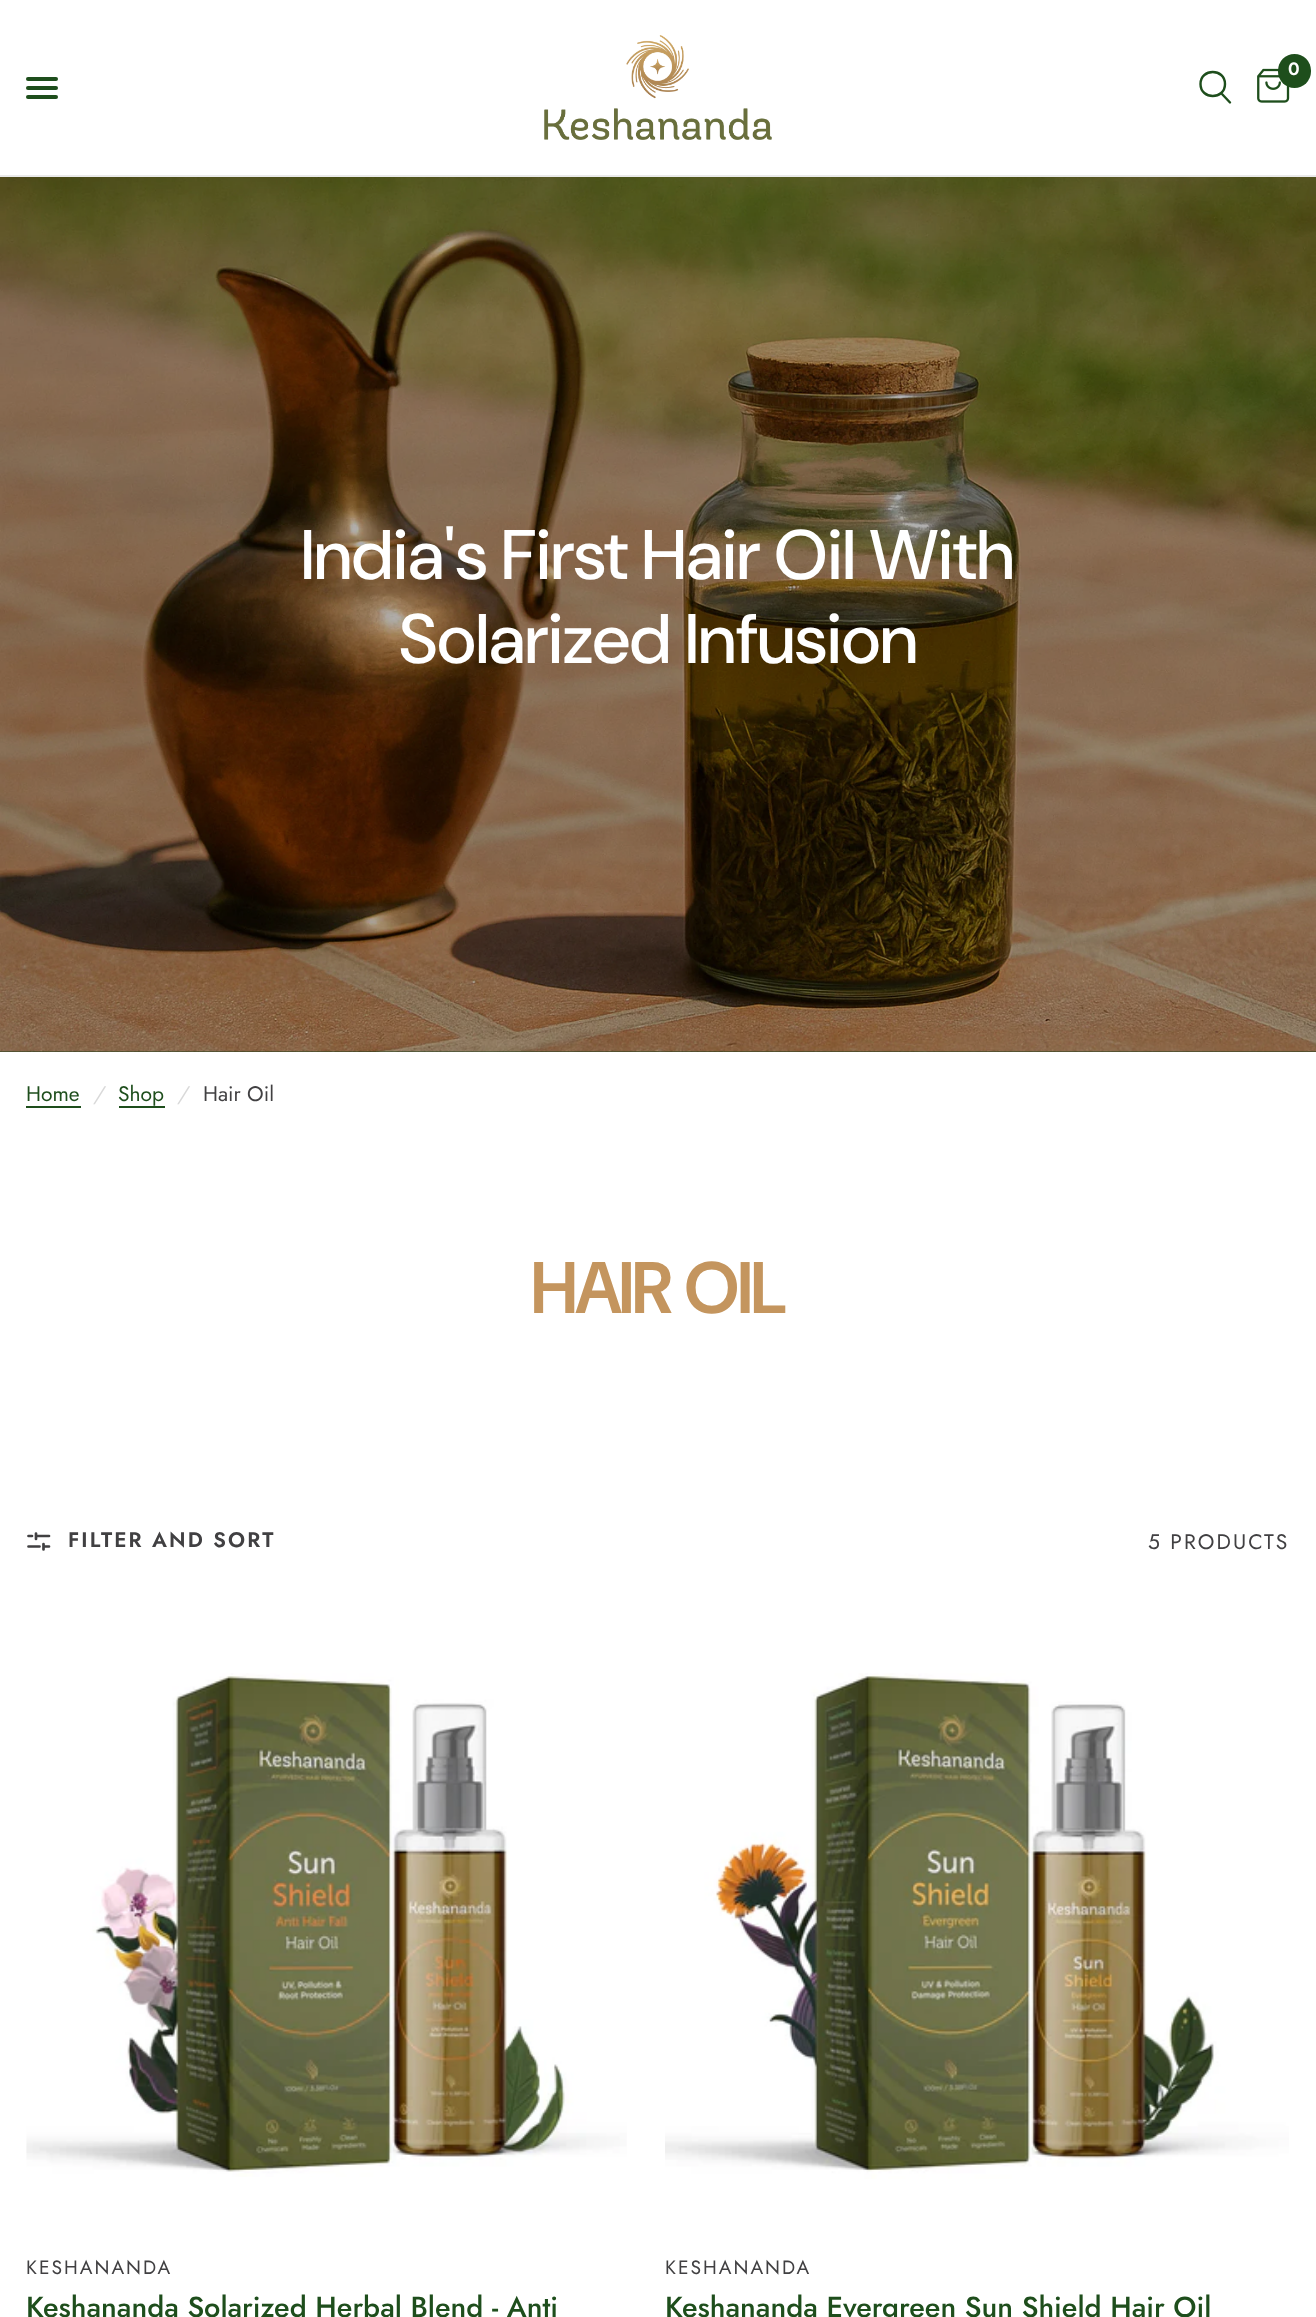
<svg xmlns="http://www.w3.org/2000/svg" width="1316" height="2317">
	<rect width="100%" height="100%" fill="#FFFFFF" />
	<rect x="0" y="175" width="1316" height="2" fill="#EAEAEA" />
	<image x="544" y="35" width="228" height="105" href="assets/img1.png" />
	<path d="M1221.5 93.5L1230 102.5M1225 84C1225 100 1200.5 100 1200.5 84C1200.5 68 1225 68 1225 84Z" fill="none" stroke="#1E4E1C" stroke-width="2.4" stroke-linecap="round" stroke-linejoin="round" />
	<image x="1257" y="68" width="33" height="35" href="assets/img2.png" />
	<rect x="1278" y="54" width="33" height="34" rx="16.5" fill="#1E4E1C" />
	<text x="1288" y="75" font-family="Jost" font-size="18" font-weight="600" fill="#FFFFFF">0</text>
	<rect x="26" y="77" width="32" height="4" rx="2" fill="#1E4E1C" />
	<rect x="26" y="86" width="32" height="4" rx="2" fill="#1E4E1C" />
	<rect x="26" y="95" width="32" height="4" rx="2" fill="#1E4E1C" />
	<rect x="0" y="1051" width="1316" height="1" fill="#153714" />
	<image x="0" y="177" width="1316" height="875" href="assets/img3.png" />
	<g font-family="DM Sans" font-size="70" font-weight="500" fill="#FFFFFF">
		<text x="301" y="579">India's First Hair Oil With</text>
		<text x="399" y="663">Solarized Infusion</text>
	</g>
	<text x="26" y="1101" font-family="Jost" font-size="21" fill="#1E4E1C">Home</text>
	<rect x="26" y="1106" width="55" height="2" fill="#1E4E1C" />
	<text x="94" y="1101" font-family="Jost" font-size="21" font-style="italic" fill="#D9D9D9">/</text>
	<text x="118" y="1101" font-family="Jost" font-size="21" fill="#1E4E1C">Shop</text>
	<rect x="119" y="1106" width="46" height="2" fill="#1E4E1C" />
	<text x="178" y="1101" font-family="Jost" font-size="21" font-style="italic" fill="#D9D9D9">/</text>
	<text x="203" y="1101" font-family="Jost" font-size="21" fill="#414042">Hair Oil</text>
	<text x="531" y="1313" font-family="DM Sans" font-size="70" font-weight="700" fill="#C4955E">HAIR OIL</text>
	<path d="M39.5 1546.5H28.5M49 1546.5H43.5M32 1536H28.5M49 1536H36M36 1533.5V1539M43.5 1549.5V1544" fill="none" stroke="#414042" stroke-width="2.7" stroke-linecap="round" stroke-linejoin="round" />
	<text x="68" y="1547" font-family="Jost" font-size="21" font-weight="600" letter-spacing="2.1" fill="#414042">FILTER AND SORT</text>
	<text x="1148" y="1549" font-family="Jost" font-size="21" letter-spacing="2.1" fill="#414042">5 PRODUCTS</text>
	<image x="26" y="1673" width="601" height="504" href="assets/img4.png" />
	<text x="26" y="2274" font-family="Jost" font-size="19.25" letter-spacing="2" fill="#414042">KESHANANDA</text>
	<text x="26" y="2317" font-family="Jost" font-size="28.9" font-weight="500" fill="#1E4E1C">Keshananda Solarized Herbal Blend - Anti</text>
	<image x="665" y="1673" width="624" height="506" href="assets/img5.png" />
	<text x="665" y="2274" font-family="Jost" font-size="19.25" letter-spacing="2" fill="#414042">KESHANANDA</text>
	<text x="665" y="2317" font-family="Jost" font-size="28.9" font-weight="500" fill="#1E4E1C">Keshananda Evergreen Sun Shield Hair Oil</text>
</svg>
